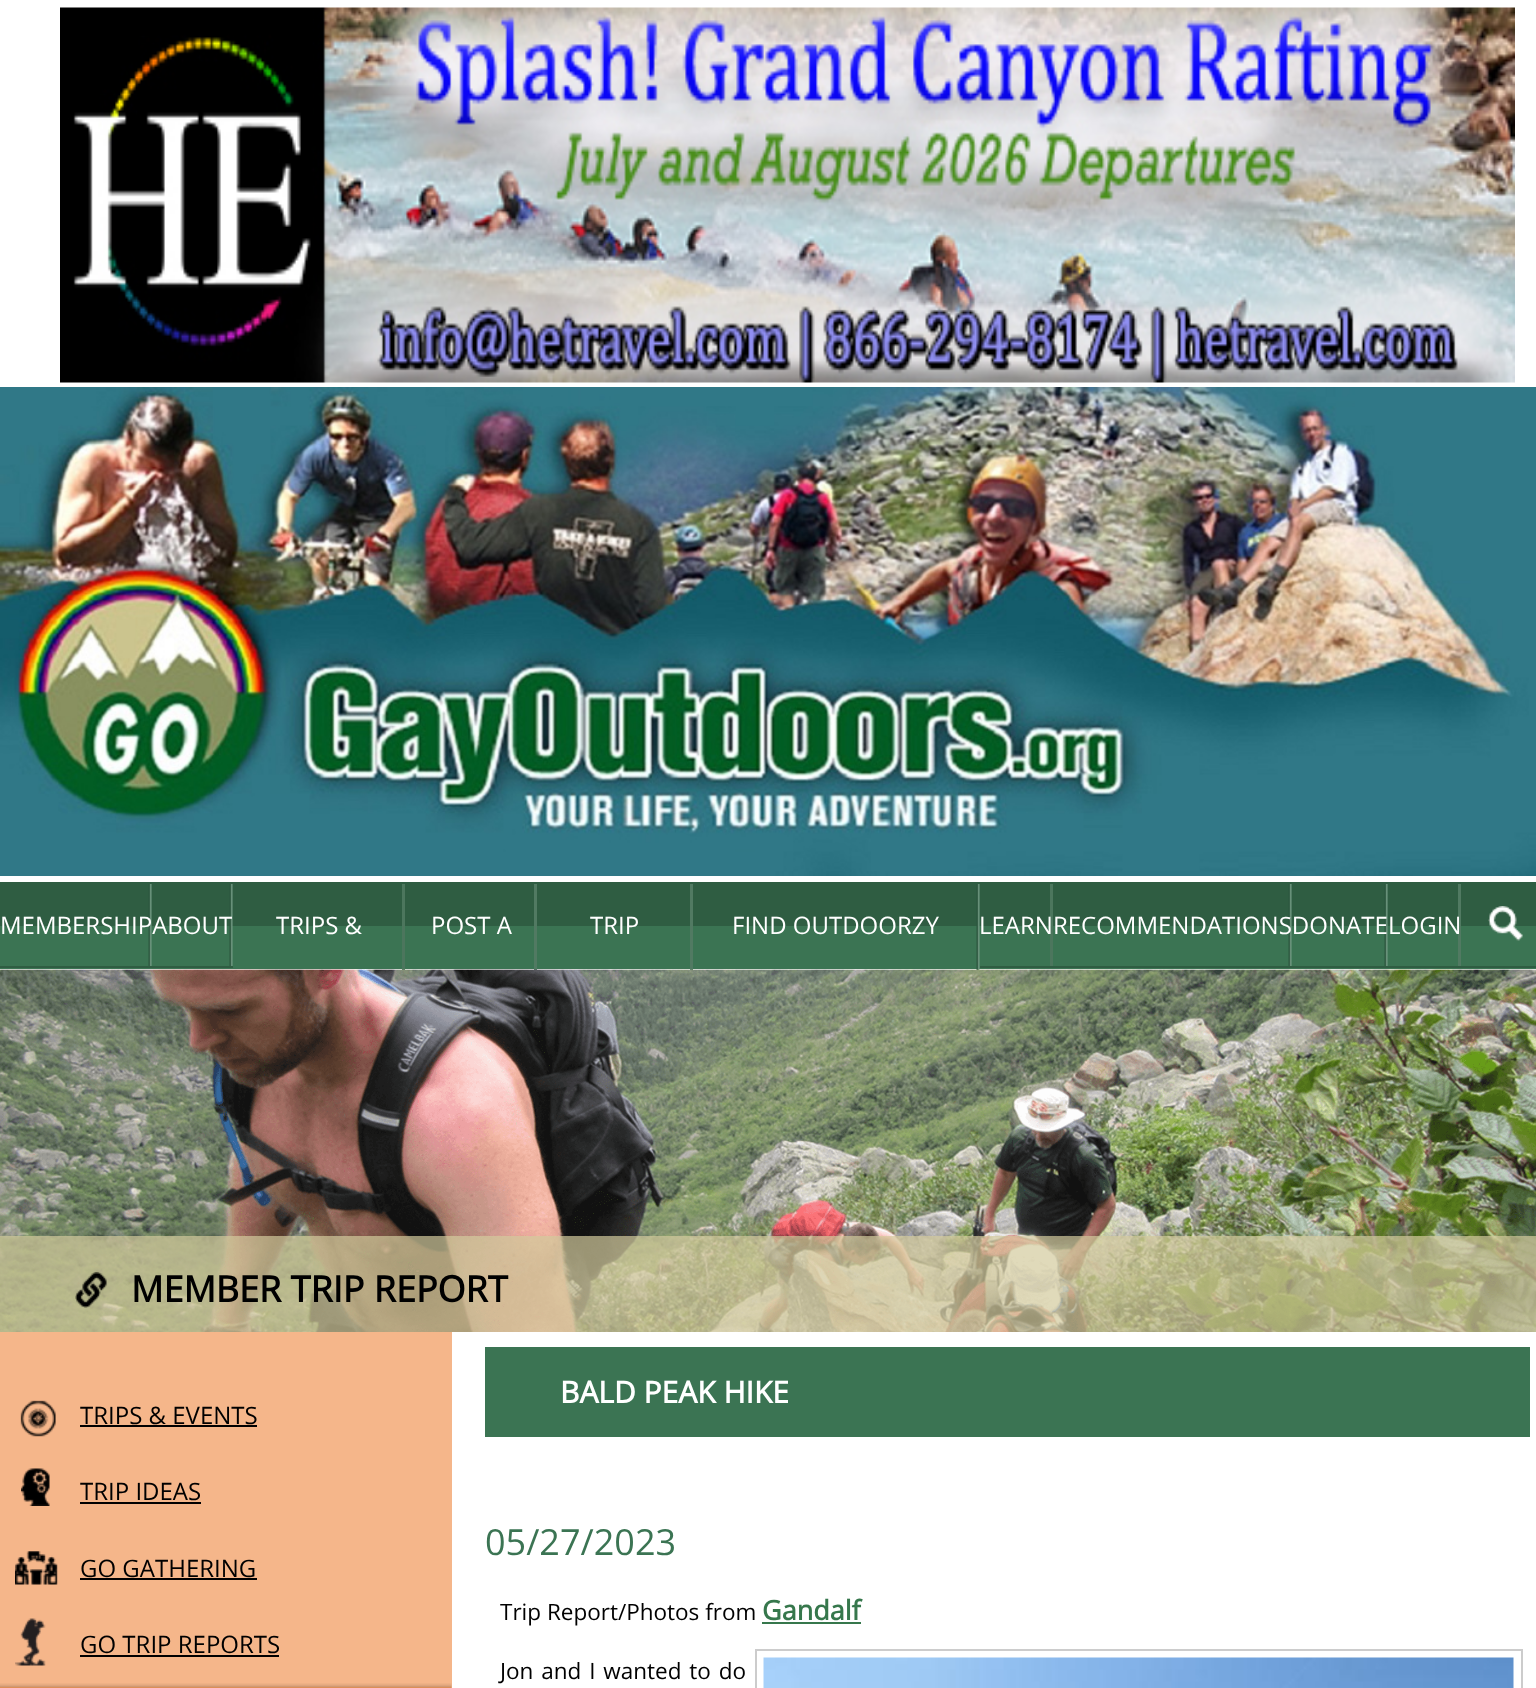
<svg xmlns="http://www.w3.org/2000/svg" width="1536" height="1688">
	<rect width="100%" height="100%" fill="#FFFFFF" />
	<image x="60" y="7" width="1455" height="376" href="assets/img1.png" />
	<image x="0" y="387" width="1536" height="489" href="assets/img2.png" />
	<rect x="0" y="882" width="1536" height="44" fill="#2F5D42" />
	<rect x="0" y="926" width="1536" height="43" fill="#3B7453" />
	<image x="229" y="884" width="4" height="82" href="assets/img3.png" />
	<image x="1288" y="884" width="4" height="82" href="assets/img3.png" />
	<image x="1384" y="884" width="4" height="82" href="assets/img3.png" />
	<image x="1488" y="906" width="35" height="35" href="assets/img4.png" />
	<rect x="1461" y="966" width="75" height="2" fill="#2F5D42" />
	<image x="148" y="884" width="4" height="82" href="assets/img3.png" />
	<rect x="0" y="966" width="233" height="2" fill="#2F5D42" />
	<text x="0" y="934" font-family="Open Sans" font-size="24" fill="#FFFFFF">MEMBERSHIPABOUT</text>
	<rect x="402" y="882" width="3" height="88" fill="#4C765D" />
	<rect x="402" y="882" width="3" height="2" fill="#2F5D42" />
	<text x="276" y="934" font-family="Open Sans" font-size="24" fill="#FFFFFF">TRIPS &amp;</text>
	<rect x="534" y="882" width="3" height="88" fill="#517A62" />
	<rect x="534" y="882" width="3" height="2" fill="#2F5D42" />
	<text x="431" y="934" font-family="Open Sans" font-size="24" fill="#FFFFFF">POST A</text>
	<rect x="690" y="882" width="3" height="88" fill="#517A62" />
	<rect x="690" y="882" width="3" height="2" fill="#2F5D42" />
	<text x="590" y="934" font-family="Open Sans" font-size="24" fill="#FFFFFF">TRIP</text>
	<image x="976" y="884" width="4" height="86" href="assets/img5.png" />
	<text x="732" y="934" font-family="Open Sans" font-size="24" fill="#FFFFFF">FIND OUTDOORZY</text>
	<rect x="1050" y="882" width="3" height="86" fill="#4C765D" />
	<rect x="1050" y="882" width="3" height="2" fill="#2F5D42" />
	<rect x="980" y="966" width="408" height="2" fill="#2F5D42" />
	<text x="979" y="934" font-family="Open Sans" font-size="24" fill="#FFFFFF">LEARNRECOMMENDATIONSDONATE</text>
	<rect x="1458" y="882" width="3" height="86" fill="#517A62" />
	<rect x="1458" y="882" width="3" height="2" fill="#2F5D42" />
	<rect x="1388" y="966" width="73" height="2" fill="#2F5D42" />
	<text x="1388" y="934" font-family="Open Sans" font-size="24" fill="#FFFFFF">LOGIN</text>
	<image x="0" y="969" width="1536" height="363" href="assets/img6.png" />
	<rect x="0" y="1236" width="1536" height="96" fill="#D3CA9D" fill-opacity="0.7" />
	<image x="75" y="1272" width="32" height="36" href="assets/img7.png" />
	<text x="131" y="1302" font-family="Open Sans" font-size="36" font-weight="700" fill="#000000">MEMBER TRIP REPORT</text>
	<rect x="0" y="1332" width="452" height="356" fill="#F5B68A" />
	<image x="20" y="1400" width="36" height="37" href="assets/img8.png" />
	<text x="80" y="1424" font-family="Open Sans" font-size="24" fill="#000000">TRIPS &amp; EVENTS</text>
	<rect x="80" y="1425" width="177" height="2" fill="#000000" />
	<image x="21" y="1468" width="29" height="38" href="assets/img9.png" />
	<text x="80" y="1500" font-family="Open Sans" font-size="24" fill="#000000">TRIP IDEAS</text>
	<rect x="80" y="1502" width="121" height="2" fill="#000000" />
	<image x="15" y="1551" width="43" height="34" href="assets/img10.png" />
	<text x="80" y="1577" font-family="Open Sans" font-size="24" fill="#000000">GO GATHERING</text>
	<rect x="80" y="1578" width="177" height="2" fill="#000000" />
	<image x="15" y="1618" width="31" height="48" href="assets/img11.png" />
	<text x="80" y="1653" font-family="Open Sans" font-size="24" fill="#000000">GO TRIP REPORTS</text>
	<rect x="80" y="1655" width="199" height="2" fill="#000000" />
	<image x="0" y="1683" width="452" height="5" href="assets/img12.png" />
	<rect x="485" y="1347" width="1045" height="90" fill="#3B7453" />
	<text x="560" y="1403" font-family="Open Sans" font-size="30" font-weight="700" fill="#FFFFFF">BALD PEAK HIKE</text>
	<text x="485" y="1555" font-family="Open Sans" font-size="36" fill="#3B7453">05/27/2023</text>
	<text x="500" y="1620" font-family="Open Sans" font-size="22.5" fill="#000000">Trip Report/Photos from</text>
	<text x="762" y="1620" font-family="Open Sans" font-size="27" font-weight="700" fill="#36774C">Gandalf</text>
	<rect x="762" y="1622" width="99" height="2" fill="#36774C" />
	<text x="500" y="1679" word-spacing="2" font-family="Open Sans" font-size="22.5" fill="#000000">Jon and I wanted to do</text>
	<rect x="756" y="1650" width="766" height="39" fill="none" stroke="#CCCCCC" stroke-width="2" />
	<image x="763" y="1657" width="751" height="31" href="assets/img13.png" />
</svg>
